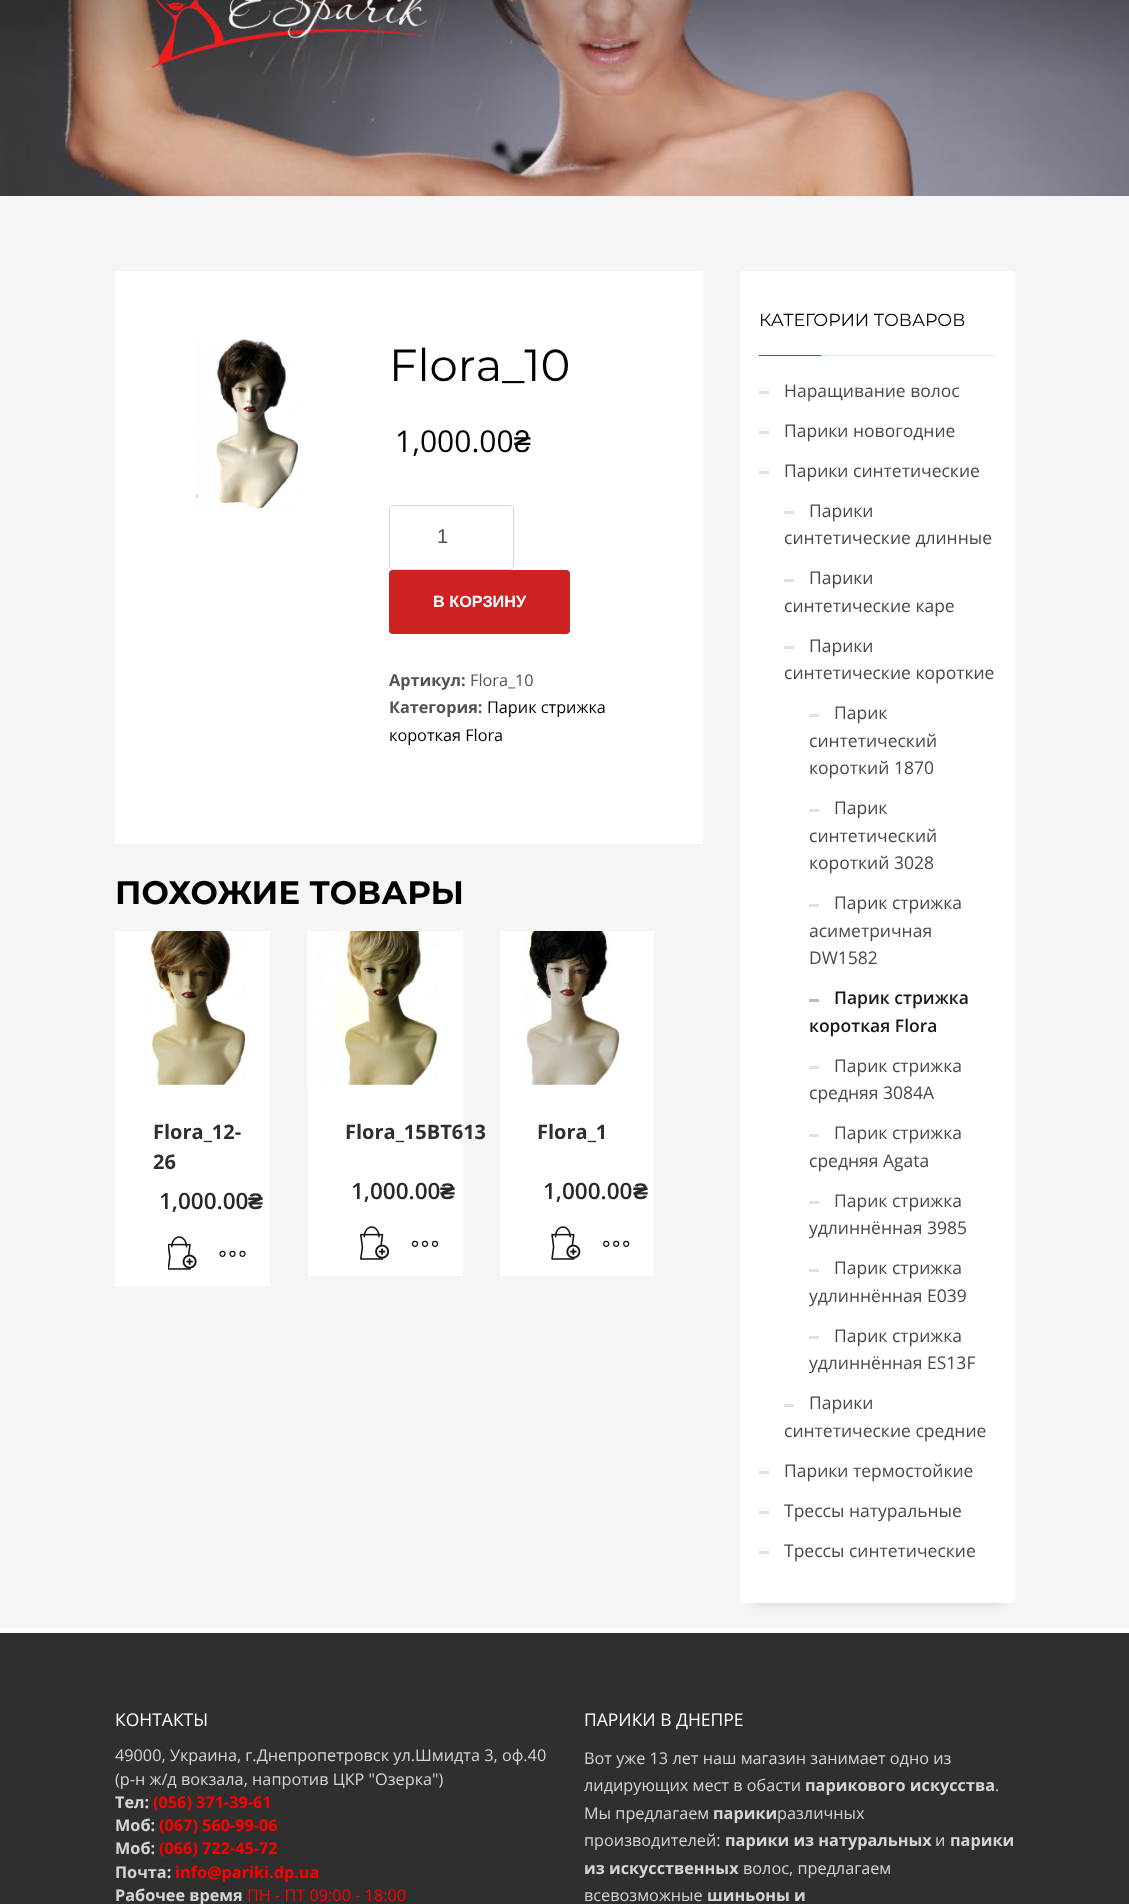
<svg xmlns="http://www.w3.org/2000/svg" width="1129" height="1904">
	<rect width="100%" height="100%" fill="#F5F5F5" />
	<image x="0" y="0" width="1129" height="196" href="assets/img1.png" />
	<image x="141" y="0" width="293" height="73" href="assets/img2.png" />
	<rect x="115" y="271" width="588" height="573" fill="#FFFFFF" />
	<image x="196" y="339" width="103" height="170" href="assets/img3.png" />
	<text x="389" y="381" font-family="Montserrat" font-size="45" fill="#000000">Florа_10</text>
	<text x="395" y="452" font-family="Open Sans" font-size="30" fill="#000000">1,000.00</text>
	<text x="514" y="452" font-family="Liberation Sans" font-size="30" fill="#000000">₴</text>
	<rect x="389.5" y="505.5" width="124" height="64" rx="3.5" fill="none" stroke="#D9D9D9" />
	<text x="437" y="543" font-family="Liberation Sans" font-size="20" fill="#535353">1</text>
	<rect x="389" y="570" width="181" height="64" rx="4" fill="#CD2122" />
	<text x="433" y="607" font-family="Liberation Sans" font-size="16.25" font-weight="700" fill="#FFFFFF">В КОРЗИНУ</text>
	<text x="389" y="686" font-family="Open Sans" font-size="16.25" font-weight="700" fill="#535353">Артикул:</text>
	<text x="470" y="686" font-family="Open Sans" font-size="16.25" fill="#535353">Florа_10</text>
	<text x="389" y="713" font-family="Open Sans" font-size="16.25" font-weight="700" fill="#535353">Категория:</text>
	<g font-family="Open Sans" font-size="16.25" fill="#000000">
		<text x="487" y="713">Парик стрижка</text>
		<text x="389" y="741">короткая Florа</text>
	</g>
	<text x="115" y="904" font-family="Montserrat" font-size="32.5" font-weight="700" fill="#000000">ПОХОЖИЕ ТОВАРЫ</text>
	<rect x="115" y="931" width="155" height="355" fill="#FFFFFF" />
	<image x="148" y="931" width="99" height="154" href="assets/img4.png" />
	<g font-family="Open Sans" font-size="20" font-weight="700" fill="#2F2F2F">
		<text x="153" y="1139">Florа_12-</text>
		<text x="153" y="1169">26</text>
	</g>
	<text x="159" y="1209" font-family="Open Sans" font-size="22.5" font-weight="600" fill="#282828">1,000.00</text>
	<text x="248" y="1209" font-family="Liberation Sans" font-size="22.5" font-weight="700" fill="#282828">₴</text>
	<image x="168" y="1236" width="29" height="34" href="assets/img5.png" />
	<circle cx="222.5" cy="1253.8" r="2.5" fill="none" stroke="#141414" stroke-width="1.2" />
	<circle cx="232.5" cy="1253.8" r="2.5" fill="none" stroke="#141414" stroke-width="1.2" />
	<circle cx="242.5" cy="1253.8" r="2.5" fill="none" stroke="#141414" stroke-width="1.2" />
	<rect x="308" y="931" width="155" height="345" fill="#FFFFFF" />
	<image x="307" y="931" width="133" height="154" href="assets/img6.png" />
	<text x="345" y="1139" font-family="Open Sans" font-size="20" font-weight="700" fill="#2F2F2F">Flora_15BT613</text>
	<text x="351" y="1199" font-family="Open Sans" font-size="22.5" font-weight="600" fill="#282828">1,000.00</text>
	<text x="440" y="1199" font-family="Liberation Sans" font-size="22.5" font-weight="700" fill="#282828">₴</text>
	<image x="360" y="1226" width="30" height="34" href="assets/img7.png" />
	<circle cx="415" cy="1243.8" r="2.5" fill="none" stroke="#141414" stroke-width="1.2" />
	<circle cx="425" cy="1243.8" r="2.5" fill="none" stroke="#141414" stroke-width="1.2" />
	<circle cx="435" cy="1243.8" r="2.5" fill="none" stroke="#141414" stroke-width="1.2" />
	<rect x="500" y="931" width="154" height="345" fill="#FFFFFF" />
	<image x="524" y="931" width="97" height="154" href="assets/img8.png" />
	<text x="537" y="1139" font-family="Open Sans" font-size="20" font-weight="700" fill="#2F2F2F">Flora_1</text>
	<text x="543" y="1199" font-family="Open Sans" font-size="22.5" font-weight="600" fill="#282828">1,000.00</text>
	<text x="633" y="1199" font-family="Liberation Sans" font-size="22.5" font-weight="700" fill="#282828">₴</text>
	<image x="551" y="1226" width="30" height="34" href="assets/img9.png" />
	<circle cx="606.2" cy="1243.8" r="2.5" fill="none" stroke="#141414" stroke-width="1.2" />
	<circle cx="616.2" cy="1243.8" r="2.5" fill="none" stroke="#141414" stroke-width="1.2" />
	<circle cx="626.2" cy="1243.8" r="2.5" fill="none" stroke="#141414" stroke-width="1.2" />
	<rect x="753" y="296" width="250" height="1307" fill="#000000" fill-opacity="0.15" filter="blur(6px)" />
	<rect x="740" y="271" width="275" height="1332" rx="4" fill="#FFFFFF" />
	<text x="759" y="326" font-family="Montserrat" font-size="17.5" fill="#000000">КАТЕГОРИИ ТОВАРОВ</text>
	<rect x="759" y="355" width="62" height="1" fill="#CD2122" />
	<rect x="821" y="355" width="175" height="1" fill="#ECECEC" />
	<rect x="759" y="391" width="10" height="3" fill="#E1E1E1" />
	<text x="784" y="397" font-family="Open Sans" font-size="17.5" fill="#484848">Наращивание волос</text>
	<rect x="759" y="431" width="10" height="3" fill="#E1E1E1" />
	<text x="784" y="437" font-family="Open Sans" font-size="17.5" fill="#484848">Парики новогодние</text>
	<rect x="759" y="471" width="10" height="3" fill="#E1E1E1" />
	<text x="784" y="477" font-family="Open Sans" font-size="17.5" fill="#484848">Парики синтетические</text>
	<rect x="784" y="511" width="10" height="3" fill="#E1E1E1" />
	<g font-family="Open Sans" font-size="17.5" fill="#484848">
		<text x="809" y="517">Парики</text>
		<text x="784" y="544">синтетические длинные</text>
	</g>
	<rect x="784" y="579" width="10" height="3" fill="#E1E1E1" />
	<g font-family="Open Sans" font-size="17.5" fill="#484848">
		<text x="809" y="584">Парики</text>
		<text x="784" y="612">синтетические каре</text>
	</g>
	<rect x="784" y="646" width="10" height="3" fill="#E1E1E1" />
	<g font-family="Open Sans" font-size="17.5" fill="#484848">
		<text x="809" y="652">Парики</text>
		<text x="784" y="679">синтетические короткие</text>
	</g>
	<rect x="809" y="714" width="10" height="3" fill="#E1E1E1" />
	<g font-family="Open Sans" font-size="17.5" fill="#484848">
		<text x="834" y="719">Парик</text>
		<text x="809" y="747">синтетический</text>
		<text x="809" y="774">короткий 1870</text>
	</g>
	<rect x="809" y="809" width="10" height="3" fill="#E1E1E1" />
	<g font-family="Open Sans" font-size="17.5" fill="#484848">
		<text x="834" y="814">Парик</text>
		<text x="809" y="842">синтетический</text>
		<text x="809" y="869">короткий 3028</text>
	</g>
	<rect x="809" y="904" width="10" height="3" fill="#E1E1E1" />
	<g font-family="Open Sans" font-size="17.5" fill="#484848">
		<text x="834" y="909">Парик стрижка</text>
		<text x="809" y="937">асиметричная</text>
		<text x="809" y="964">DW1582</text>
	</g>
	<rect x="809" y="999" width="10" height="3" fill="#BBBBBB" />
	<g font-family="Open Sans" font-size="17.5" font-weight="600" fill="#181818">
		<text x="834" y="1004">Парик стрижка</text>
		<text x="809" y="1032">короткая Florа</text>
	</g>
	<rect x="809" y="1066" width="10" height="3" fill="#E1E1E1" />
	<g font-family="Open Sans" font-size="17.5" fill="#484848">
		<text x="834" y="1072">Парик стрижка</text>
		<text x="809" y="1099">средняя 3084A</text>
	</g>
	<rect x="809" y="1134" width="10" height="3" fill="#E1E1E1" />
	<g font-family="Open Sans" font-size="17.5" fill="#484848">
		<text x="834" y="1139">Парик стрижка</text>
		<text x="809" y="1167">средняя Agata</text>
	</g>
	<rect x="809" y="1201" width="10" height="3" fill="#E1E1E1" />
	<g font-family="Open Sans" font-size="17.5" fill="#484848">
		<text x="834" y="1207">Парик стрижка</text>
		<text x="809" y="1234">удлиннённая 3985</text>
	</g>
	<rect x="809" y="1269" width="10" height="3" fill="#E1E1E1" />
	<g font-family="Open Sans" font-size="17.5" fill="#484848">
		<text x="834" y="1274">Парик стрижка</text>
		<text x="809" y="1302">удлиннённая E039</text>
	</g>
	<rect x="809" y="1336" width="10" height="3" fill="#E1E1E1" />
	<g font-family="Open Sans" font-size="17.5" fill="#484848">
		<text x="834" y="1342">Парик стрижка</text>
		<text x="809" y="1369">удлиннённая ES13F</text>
	</g>
	<rect x="784" y="1404" width="10" height="3" fill="#E1E1E1" />
	<g font-family="Open Sans" font-size="17.5" fill="#484848">
		<text x="809" y="1409">Парики</text>
		<text x="784" y="1437">синтетические средние</text>
	</g>
	<rect x="759" y="1471" width="10" height="3" fill="#E1E1E1" />
	<text x="784" y="1477" font-family="Open Sans" font-size="17.5" fill="#484848">Парики термостойкие</text>
	<rect x="759" y="1511" width="10" height="3" fill="#E1E1E1" />
	<text x="784" y="1517" font-family="Open Sans" font-size="17.5" fill="#484848">Трессы натуральные</text>
	<rect x="759" y="1551" width="10" height="3" fill="#E1E1E1" />
	<text x="784" y="1557" font-family="Open Sans" font-size="17.5" fill="#484848">Трессы синтетические</text>
	<rect x="0" y="1633" width="1129" height="271" fill="#2F2F2F" />
	<rect x="0" y="1628" width="1129" height="5" fill="#FFFFFF" />
	<text x="115" y="1726" font-family="Open Sans" font-size="17.5" fill="#FFFFFF">КОНТАКТЫ</text>
	<g font-family="Open Sans" font-size="16.25" fill="#D5D5D5">
		<text x="115" y="1761">49000, Украина, г.Днепропетровск ул.Шмидта 3, оф.40</text>
		<text x="115" y="1785">(р-н ж/д вокзала, напротив ЦКР "Озерка")</text>
	</g>
	<text x="115" y="1808" font-family="Open Sans" font-size="16.25" font-weight="700" fill="#D5D5D5">Тел:</text>
	<text x="153" y="1808" font-family="Open Sans" font-size="16.25" font-weight="700" fill="#FF0000">(056) 371-39-61</text>
	<text x="115" y="1831" font-family="Open Sans" font-size="16.25" font-weight="700" fill="#D5D5D5">Моб:</text>
	<text x="159" y="1831" font-family="Open Sans" font-size="16.25" font-weight="700" fill="#FF0000">(067) 560-99-06</text>
	<text x="115" y="1854" font-family="Open Sans" font-size="16.25" font-weight="700" fill="#D5D5D5">Моб:</text>
	<text x="159" y="1854" font-family="Open Sans" font-size="16.25" font-weight="700" fill="#FF0000">(066) 722-45-72</text>
	<text x="115" y="1878" font-family="Open Sans" font-size="16.25" font-weight="700" fill="#D5D5D5">Почта:</text>
	<text x="175" y="1878" font-family="Open Sans" font-size="16.25" font-weight="700" fill="#FF0000">info@pariki.dp.ua</text>
	<text x="115" y="1901" font-family="Open Sans" font-size="16.25" font-weight="700" fill="#D5D5D5">Рабочее время</text>
	<text x="247" y="1901" font-family="Open Sans" font-size="16.25" fill="#FF0000">ПН - ПТ 09:00 - 18:00</text>
	<text x="584" y="1726" font-family="Open Sans" font-size="17.5" fill="#FFFFFF">ПАРИКИ В ДНЕПРЕ</text>
	<g font-family="Open Sans" font-size="16.25" fill="#D5D5D5">
		<text x="584" y="1764">Вот уже 13 лет наш магазин занимает одно из</text>
		<text x="584" y="1791">лидирующих мест в обасти</text>
	</g>
	<text x="805" y="1791" font-family="Open Sans" font-size="16.25" font-weight="700" fill="#D5D5D5">парикового искусства</text>
	<g font-family="Open Sans" font-size="16.25" fill="#D5D5D5">
		<text x="995" y="1791">.</text>
		<text x="584" y="1819">Мы предлагаем</text>
	</g>
	<text x="713" y="1819" font-family="Open Sans" font-size="16.25" font-weight="700" fill="#D5D5D5">парики</text>
	<g font-family="Open Sans" font-size="16.25" fill="#D5D5D5">
		<text x="777" y="1819">различных</text>
		<text x="584" y="1846">производителей:</text>
	</g>
	<text x="725" y="1846" font-family="Open Sans" font-size="16.25" font-weight="700" fill="#D5D5D5">парики из натуральных</text>
	<text x="935" y="1846" font-family="Open Sans" font-size="16.25" fill="#D5D5D5">и</text>
	<g font-family="Open Sans" font-size="16.25" font-weight="700" fill="#D5D5D5">
		<text x="950" y="1846">парики</text>
		<text x="584" y="1874">из искусственных</text>
	</g>
	<g font-family="Open Sans" font-size="16.25" fill="#D5D5D5">
		<text x="743" y="1874">волос, предлагаем</text>
		<text x="584" y="1901">всевозможные</text>
	</g>
	<text x="707" y="1901" font-family="Open Sans" font-size="16.25" font-weight="700" fill="#D5D5D5">шиньоны и</text>
</svg>
